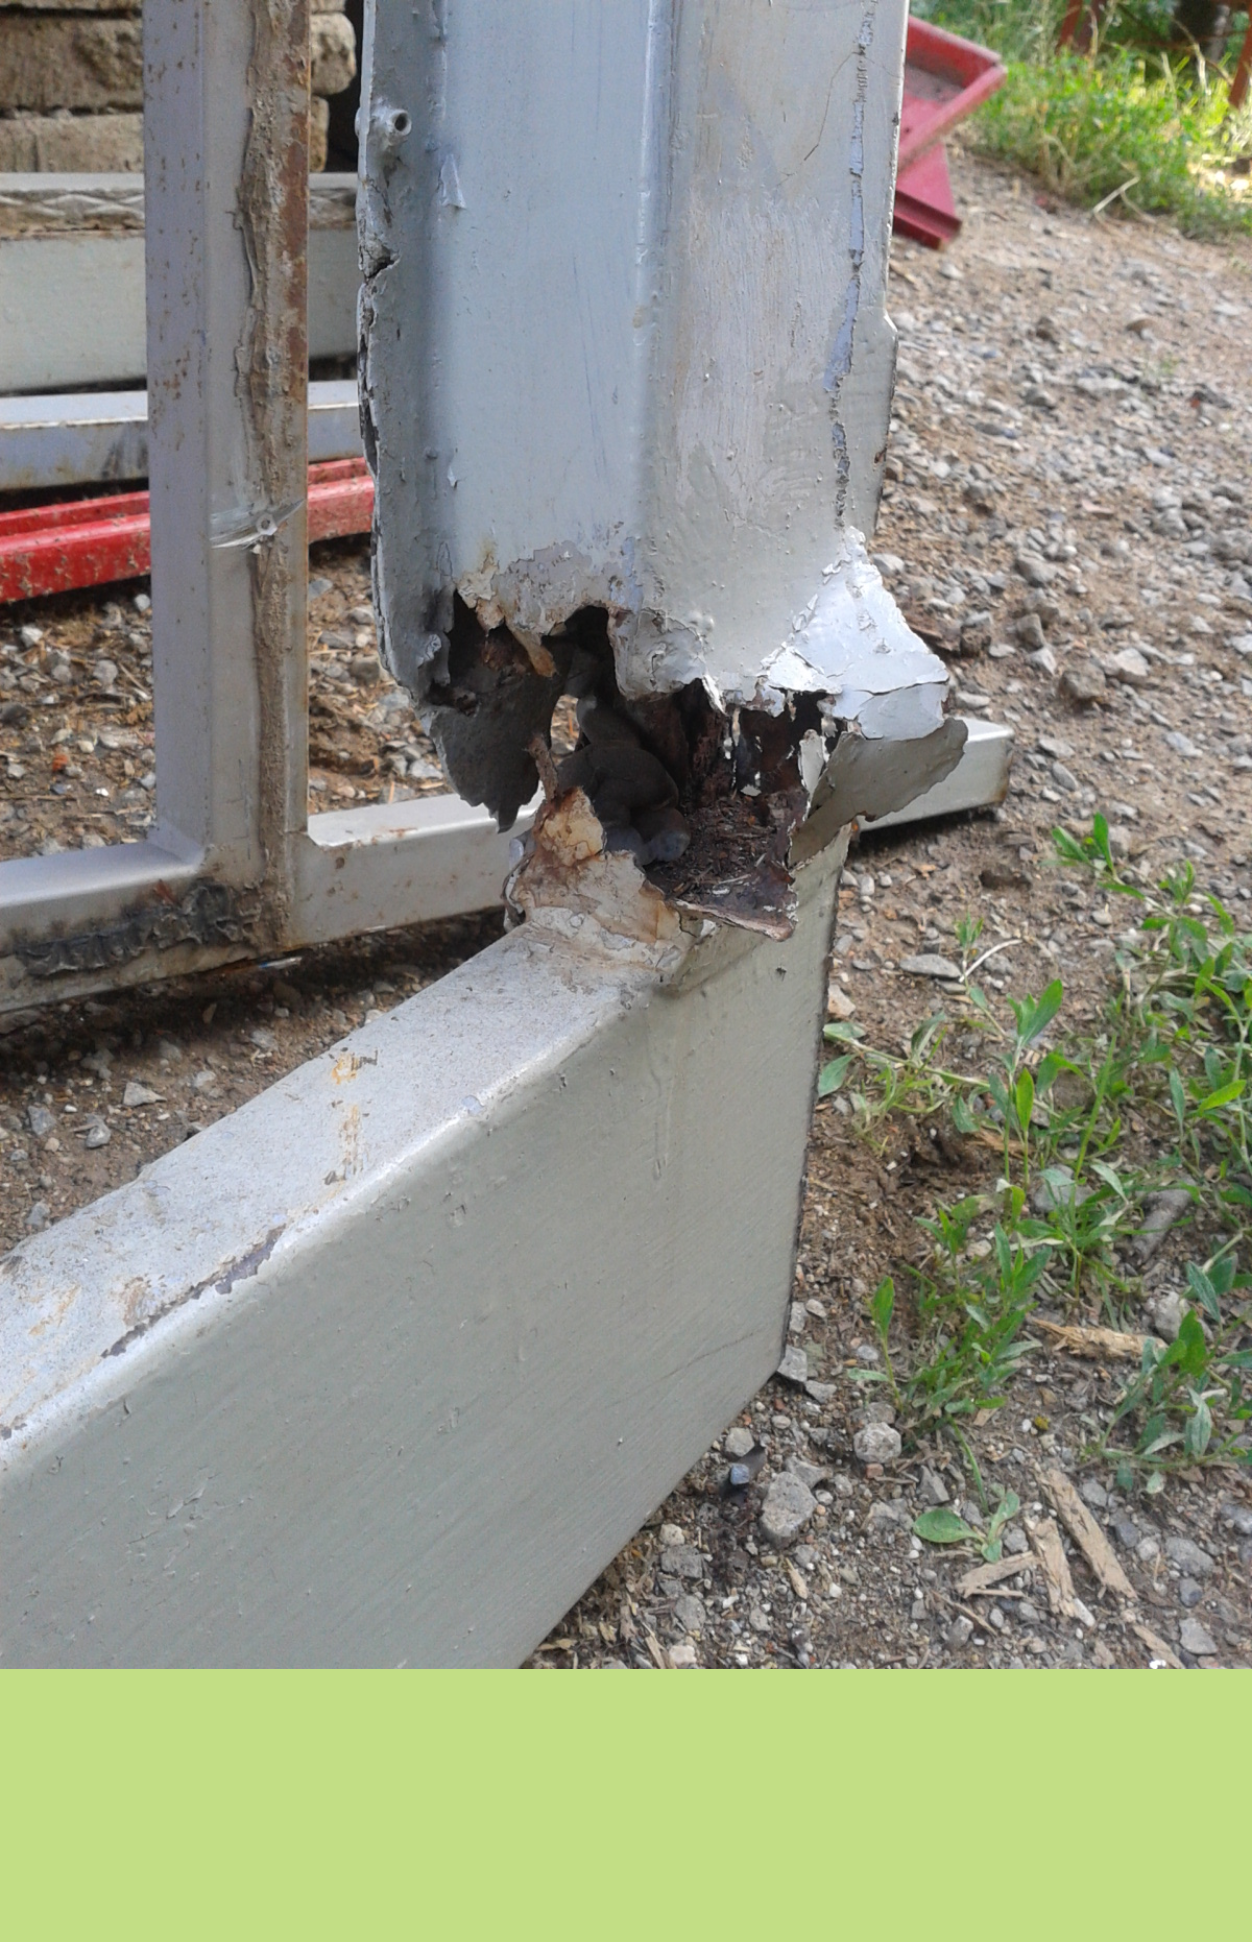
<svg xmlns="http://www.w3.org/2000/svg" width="1252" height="1942">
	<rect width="100%" height="100%" fill="#C2DE85" />
	<image x="0" y="0" width="1252" height="1669" href="assets/img1.png" />
</svg>
